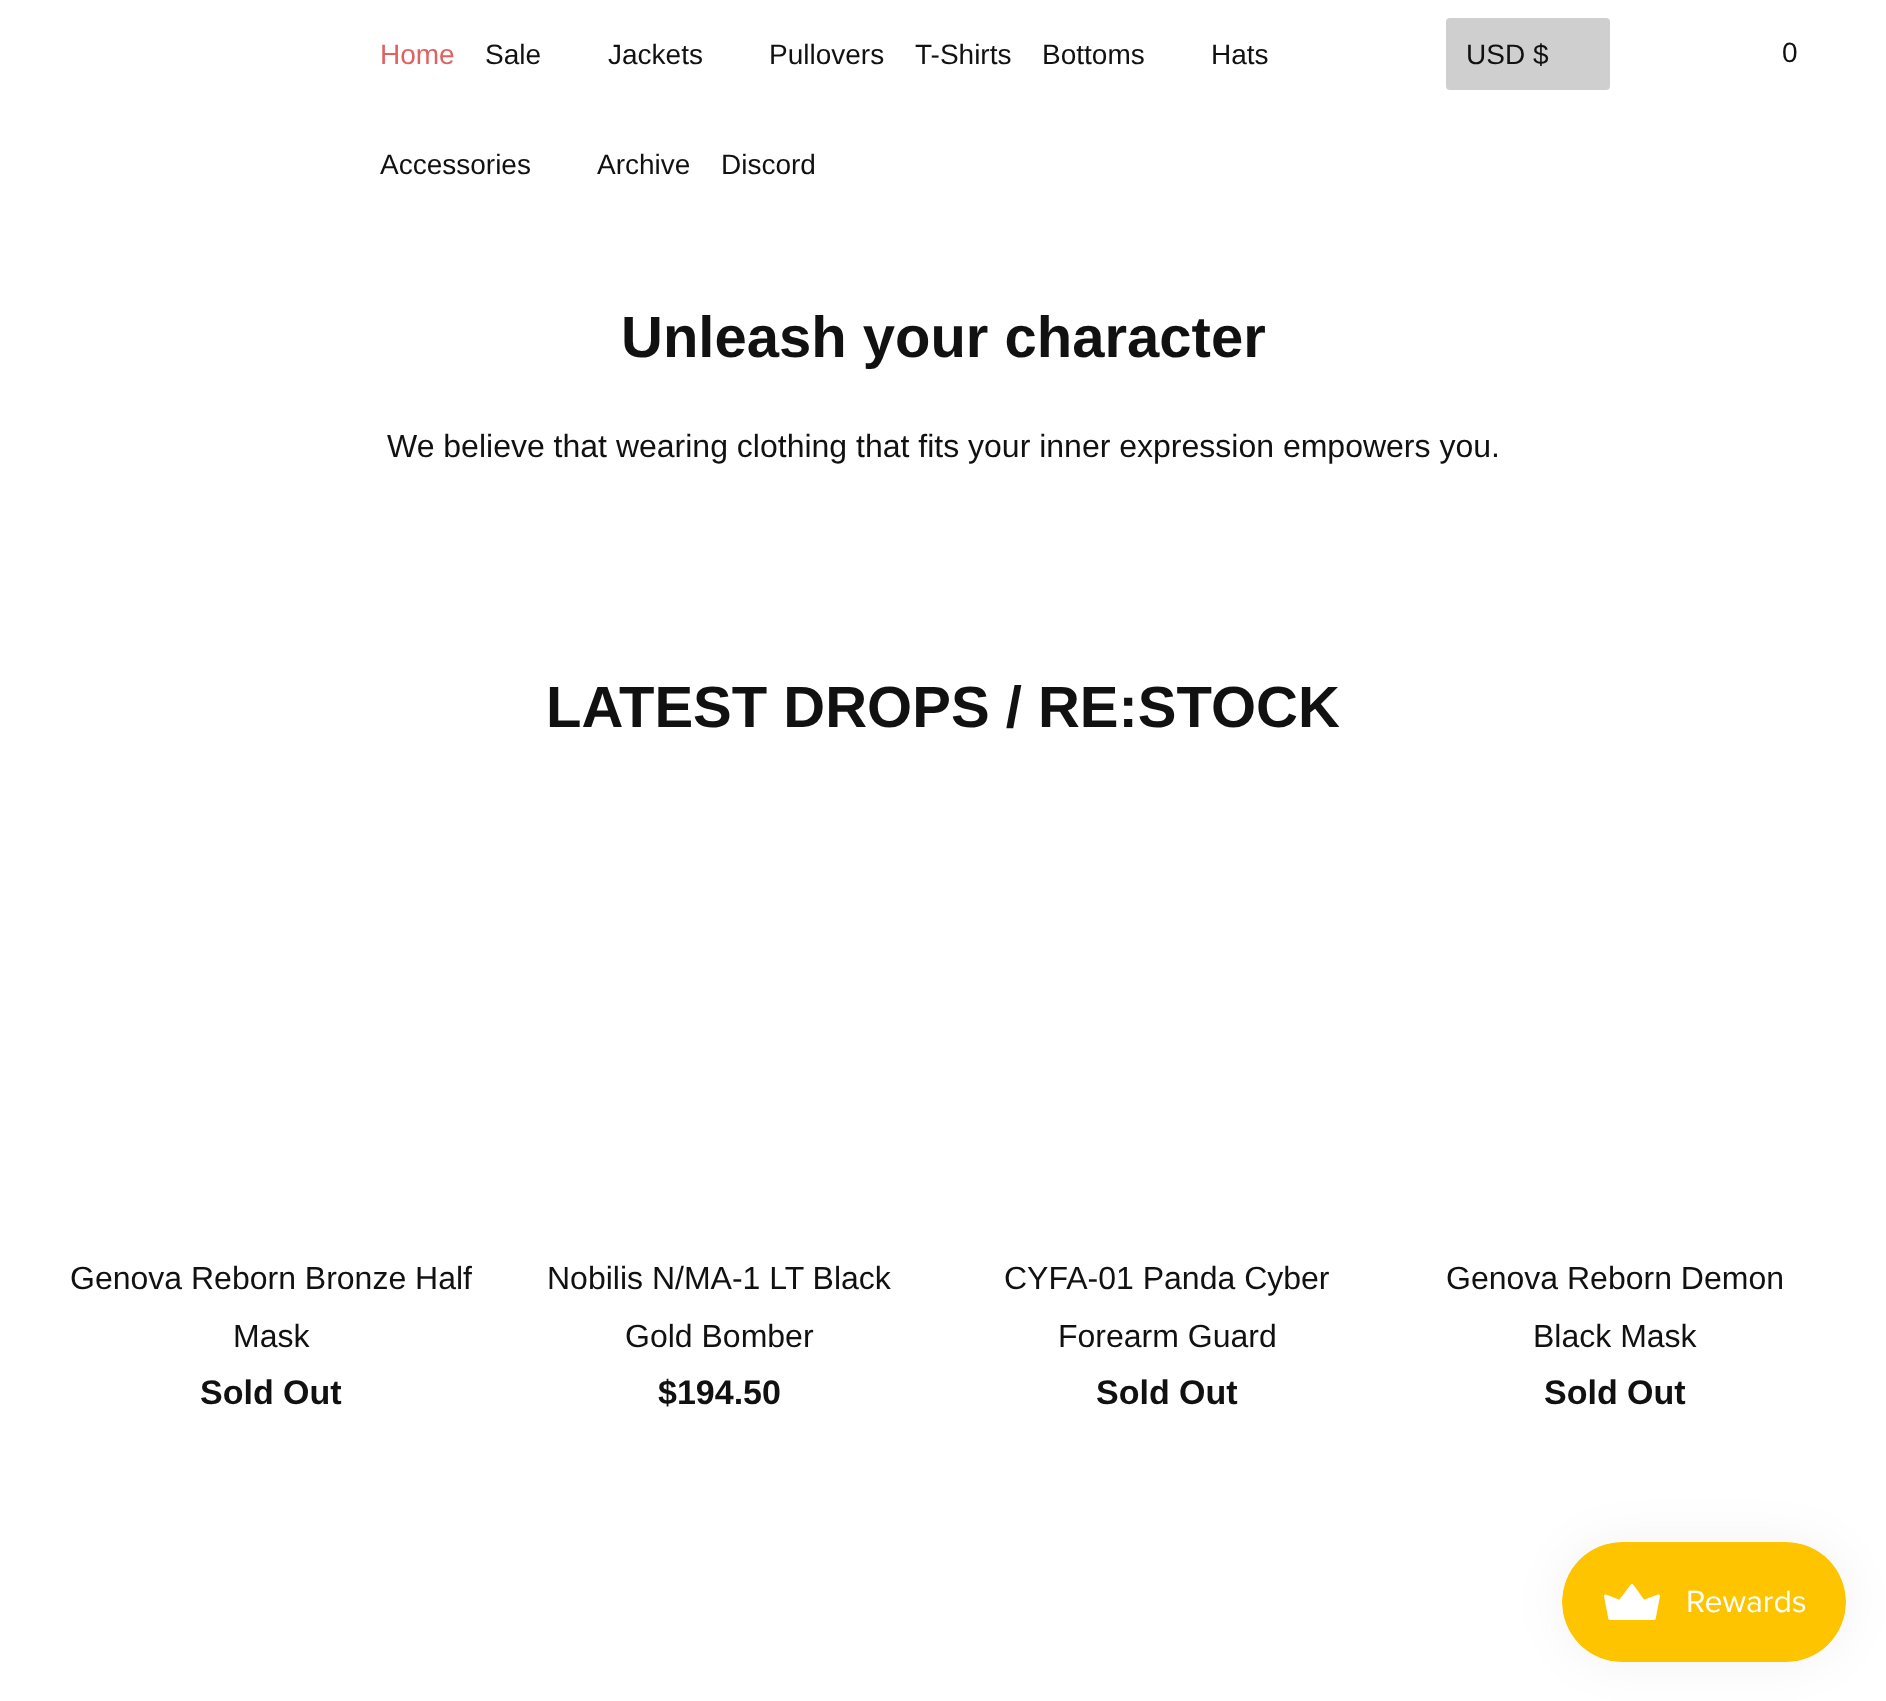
<svg xmlns="http://www.w3.org/2000/svg" width="1886" height="1701">
	<rect width="100%" height="100%" fill="#FFFFFF" />
	<text x="380" y="64" font-family="Liberation Sans" font-size="28" fill="#E16161">Home</text>
	<g font-family="Liberation Sans" font-size="28" fill="#111111">
		<text x="485" y="64">Sale</text>
		<text x="608" y="64">Jackets</text>
		<text x="769" y="64">Pullovers</text>
		<text x="915" y="64">T-Shirts</text>
		<text x="1042" y="64">Bottoms</text>
		<text x="1211" y="64">Hats</text>
		<text x="380" y="174">Accessories</text>
		<text x="597" y="174">Archive</text>
		<text x="721" y="174">Discord</text>
	</g>
	<rect x="1446" y="18" width="164" height="72" rx="4" fill="#CFCFCF" />
	<g font-family="Liberation Sans" font-size="28" fill="#111111">
		<text x="1466" y="64">USD $</text>
		<text x="1782" y="62">0</text>
	</g>
	<text x="621" y="357" font-family="Liberation Sans" font-size="58" font-weight="700" fill="#111111">Unleash your character</text>
	<text x="387" y="457" font-family="Liberation Sans" font-size="32" fill="#111111">We believe that wearing clothing that fits your inner expression empowers you.</text>
	<text x="546" y="727" font-family="Liberation Sans" font-size="58" font-weight="700" fill="#111111">LATEST DROPS / RE:STOCK</text>
	<g font-family="Liberation Sans" font-size="32" fill="#111111">
		<text x="70" y="1289">Genova Reborn Bronze Half</text>
		<text x="233" y="1347">Mask</text>
	</g>
	<text x="200" y="1404" font-family="Liberation Sans" font-size="34" font-weight="700" fill="#111111">Sold Out</text>
	<g font-family="Liberation Sans" font-size="32" fill="#111111">
		<text x="547" y="1289">Nobilis N/MA-1 LT Black</text>
		<text x="625" y="1347">Gold Bomber</text>
	</g>
	<text x="658" y="1404" font-family="Liberation Sans" font-size="34" font-weight="700" fill="#111111">$194.50</text>
	<g font-family="Liberation Sans" font-size="32" fill="#111111">
		<text x="1004" y="1289">CYFA-01 Panda Cyber</text>
		<text x="1058" y="1347">Forearm Guard</text>
	</g>
	<text x="1096" y="1404" font-family="Liberation Sans" font-size="34" font-weight="700" fill="#111111">Sold Out</text>
	<g font-family="Liberation Sans" font-size="32" fill="#111111">
		<text x="1446" y="1289">Genova Reborn Demon</text>
		<text x="1533" y="1347">Black Mask</text>
	</g>
	<text x="1544" y="1404" font-family="Liberation Sans" font-size="34" font-weight="700" fill="#111111">Sold Out</text>
	<rect x="1562" y="1542" width="284" height="120" rx="60" fill="#000000" fill-opacity="0.05" filter="blur(25px)" />
	<image x="1562" y="1542" width="284" height="120" href="assets/img1.png" />
</svg>
